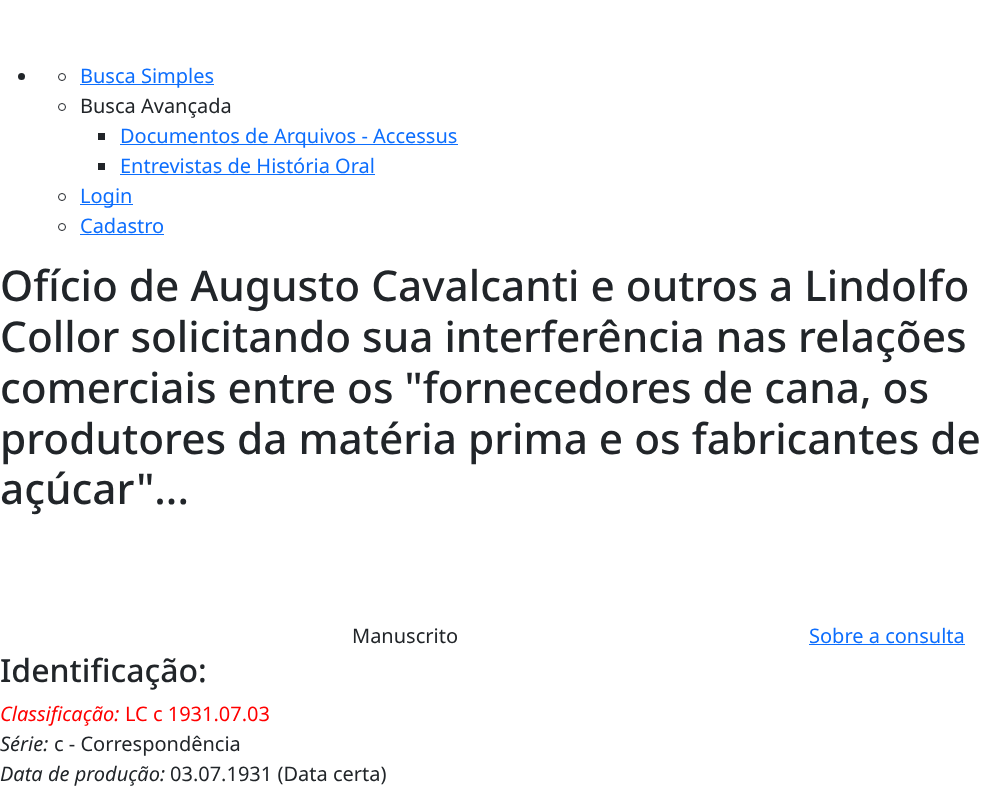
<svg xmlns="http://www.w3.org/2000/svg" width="989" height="796">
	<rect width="100%" height="100%" fill="#FFFFFF" />
	<circle cx="21.5" cy="76.5" r="3.5" fill="#212529" />
	<circle cx="62" cy="77" r="3.5" fill="none" stroke="#212529" />
	<rect x="80" y="84" width="134" height="1" fill="#0D6EFD" />
	<text x="80" y="83" font-family="Noto Sans" font-size="20" fill="#0D6EFD">Busca Simples</text>
	<circle cx="62" cy="107" r="3.5" fill="none" stroke="#212529" />
	<text x="80" y="113" font-family="Noto Sans" font-size="20" fill="#212529">Busca Avançada</text>
	<rect x="98" y="133" width="7" height="7" fill="#212529" />
	<rect x="120" y="144" width="338" height="1" fill="#0D6EFD" />
	<text x="120" y="143" font-family="Noto Sans" font-size="20" fill="#0D6EFD">Documentos de Arquivos - Accessus</text>
	<rect x="98" y="163" width="7" height="7" fill="#212529" />
	<text x="120" y="173" font-family="Noto Sans" font-size="20" fill="#0D6EFD">Entrevistas de História Oral</text>
	<rect x="120" y="174" width="255" height="1" fill="#0D6EFD" />
	<circle cx="62" cy="197" r="3.5" fill="none" stroke="#212529" />
	<rect x="80" y="204" width="53" height="1" fill="#0D6EFD" />
	<text x="80" y="203" font-family="Noto Sans" font-size="20" fill="#0D6EFD">Login</text>
	<circle cx="62" cy="227" r="3.5" fill="none" stroke="#212529" />
	<text x="80" y="233" font-family="Noto Sans" font-size="20" fill="#0D6EFD">Cadastro</text>
	<rect x="80" y="234" width="84" height="1" fill="#0D6EFD" />
	<g font-family="Noto Sans" font-size="42.35" font-weight="500" fill="#212529">
		<text x="0" y="301">Ofício de Augusto Cavalcanti e outros a Lindolfo</text>
		<text x="0" y="352">Collor solicitando sua interferência nas relações</text>
		<text x="0" y="403">comerciais entre os "fornecedores de cana, os</text>
		<text x="0" y="454">produtores da matéria prima e os fabricantes de</text>
		<text x="0" y="504">açúcar"...</text>
	</g>
	<text x="352" y="643" font-family="Noto Sans" font-size="20" fill="#212529">Manuscrito</text>
	<text x="0" y="682" font-family="Noto Sans" font-size="32" font-weight="500" fill="#212529">Identificação:</text>
	<text x="0" y="721" font-family="Noto Sans" font-size="20" font-style="italic" fill="#FF0000">Classificação:</text>
	<text x="125" y="721" font-family="Noto Sans" font-size="20" fill="#FF0000">LC c 1931.07.03</text>
	<text x="0" y="751" font-family="Noto Sans" font-size="20" font-style="italic" fill="#212529">Série:</text>
	<text x="54" y="751" font-family="Noto Sans" font-size="20" fill="#212529">c - Correspondência</text>
	<text x="0" y="781" font-family="Noto Sans" font-size="20" font-style="italic" fill="#212529">Data de produção:</text>
	<text x="170" y="781" font-family="Noto Sans" font-size="20" fill="#212529">03.07.1931 (Data certa)</text>
	<text x="809" y="643" font-family="Noto Sans" font-size="20" fill="#0D6EFD">Sobre a consulta</text>
	<rect x="809" y="644" width="156" height="1" fill="#0D6EFD" />
</svg>
